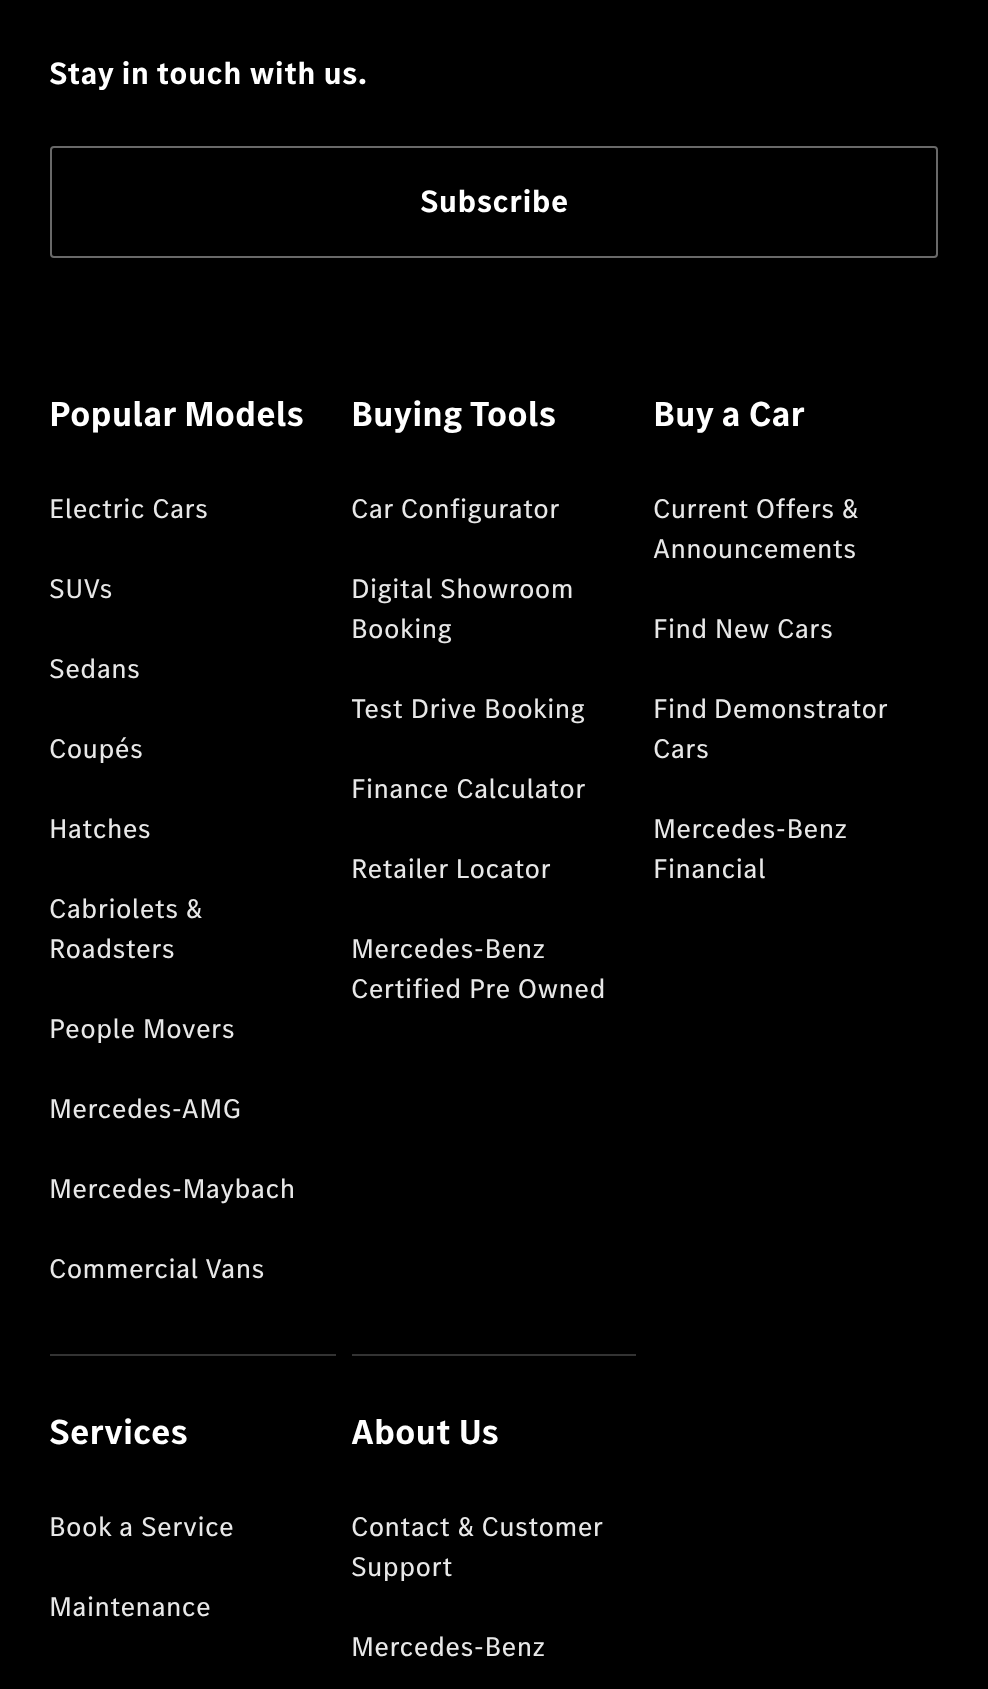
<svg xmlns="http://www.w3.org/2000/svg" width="988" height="1689">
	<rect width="100%" height="100%" fill="#000000" />
	<text x="49" y="84" font-family="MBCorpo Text" font-size="32" font-weight="700" letter-spacing="0.4" fill="#FFFFFF">Stay in touch with us.</text>
	<rect x="51" y="147" width="886" height="110" rx="3" fill="none" stroke="#696969" stroke-width="2" />
	<text x="420" y="212" font-family="MBCorpo Text" font-size="32" font-weight="700" letter-spacing="0.4" fill="#FFFFFF">Subscribe</text>
	<text x="49" y="426" font-family="MBCorpo Text" font-size="36" font-weight="700" fill="#FFFFFF">Popular Models</text>
	<g font-family="MBCorpo Text" font-size="28" letter-spacing="0.4" fill="#E8E8E8">
		<text x="49" y="518">Electric Cars</text>
		<text x="49" y="598">SUVs</text>
		<text x="49" y="678">Sedans</text>
		<text x="49" y="758">Coupés</text>
		<text x="49" y="838">Hatches</text>
		<text x="49" y="918">Cabriolets &amp;</text>
		<text x="49" y="958">Roadsters</text>
		<text x="49" y="1038">People Movers</text>
		<text x="49" y="1118">Mercedes-AMG</text>
		<text x="49" y="1198">Mercedes-Maybach</text>
		<text x="49" y="1278">Commercial Vans</text>
	</g>
	<text x="351" y="426" font-family="MBCorpo Text" font-size="36" font-weight="700" fill="#FFFFFF">Buying Tools</text>
	<g font-family="MBCorpo Text" font-size="28" letter-spacing="0.4" fill="#E8E8E8">
		<text x="351" y="518">Car Configurator</text>
		<text x="351" y="598">Digital Showroom</text>
		<text x="351" y="638">Booking</text>
		<text x="351" y="718">Test Drive Booking</text>
		<text x="351" y="798">Finance Calculator</text>
		<text x="351" y="878">Retailer Locator</text>
		<text x="351" y="958">Mercedes‑Benz</text>
		<text x="351" y="998">Certified Pre Owned</text>
	</g>
	<text x="653" y="426" font-family="MBCorpo Text" font-size="36" font-weight="700" fill="#FFFFFF">Buy a Car</text>
	<g font-family="MBCorpo Text" font-size="28" letter-spacing="0.4" fill="#E8E8E8">
		<text x="653" y="518">Current Offers &amp;</text>
		<text x="653" y="558">Announcements</text>
		<text x="653" y="638">Find New Cars</text>
		<text x="653" y="718" word-spacing="-1">Find Demonstrator</text>
		<text x="653" y="758">Cars</text>
		<text x="653" y="838">Mercedes-Benz</text>
		<text x="653" y="878">Financial</text>
	</g>
	<rect x="50" y="1354" width="286" height="2" fill="#333333" />
	<text x="49" y="1444" font-family="MBCorpo Text" font-size="36" font-weight="700" fill="#FFFFFF">Services</text>
	<g font-family="MBCorpo Text" font-size="28" letter-spacing="0.4" fill="#E8E8E8">
		<text x="49" y="1536">Book a Service</text>
		<text x="49" y="1616">Maintenance</text>
	</g>
	<rect x="352" y="1354" width="284" height="2" fill="#333333" />
	<text x="351" y="1444" font-family="MBCorpo Text" font-size="36" font-weight="700" fill="#FFFFFF">About Us</text>
	<g font-family="MBCorpo Text" font-size="28" letter-spacing="0.4" fill="#E8E8E8">
		<text x="351" y="1536">Contact &amp; Customer</text>
		<text x="351" y="1576">Support</text>
		<text x="351" y="1656">Mercedes-Benz</text>
	</g>
</svg>
